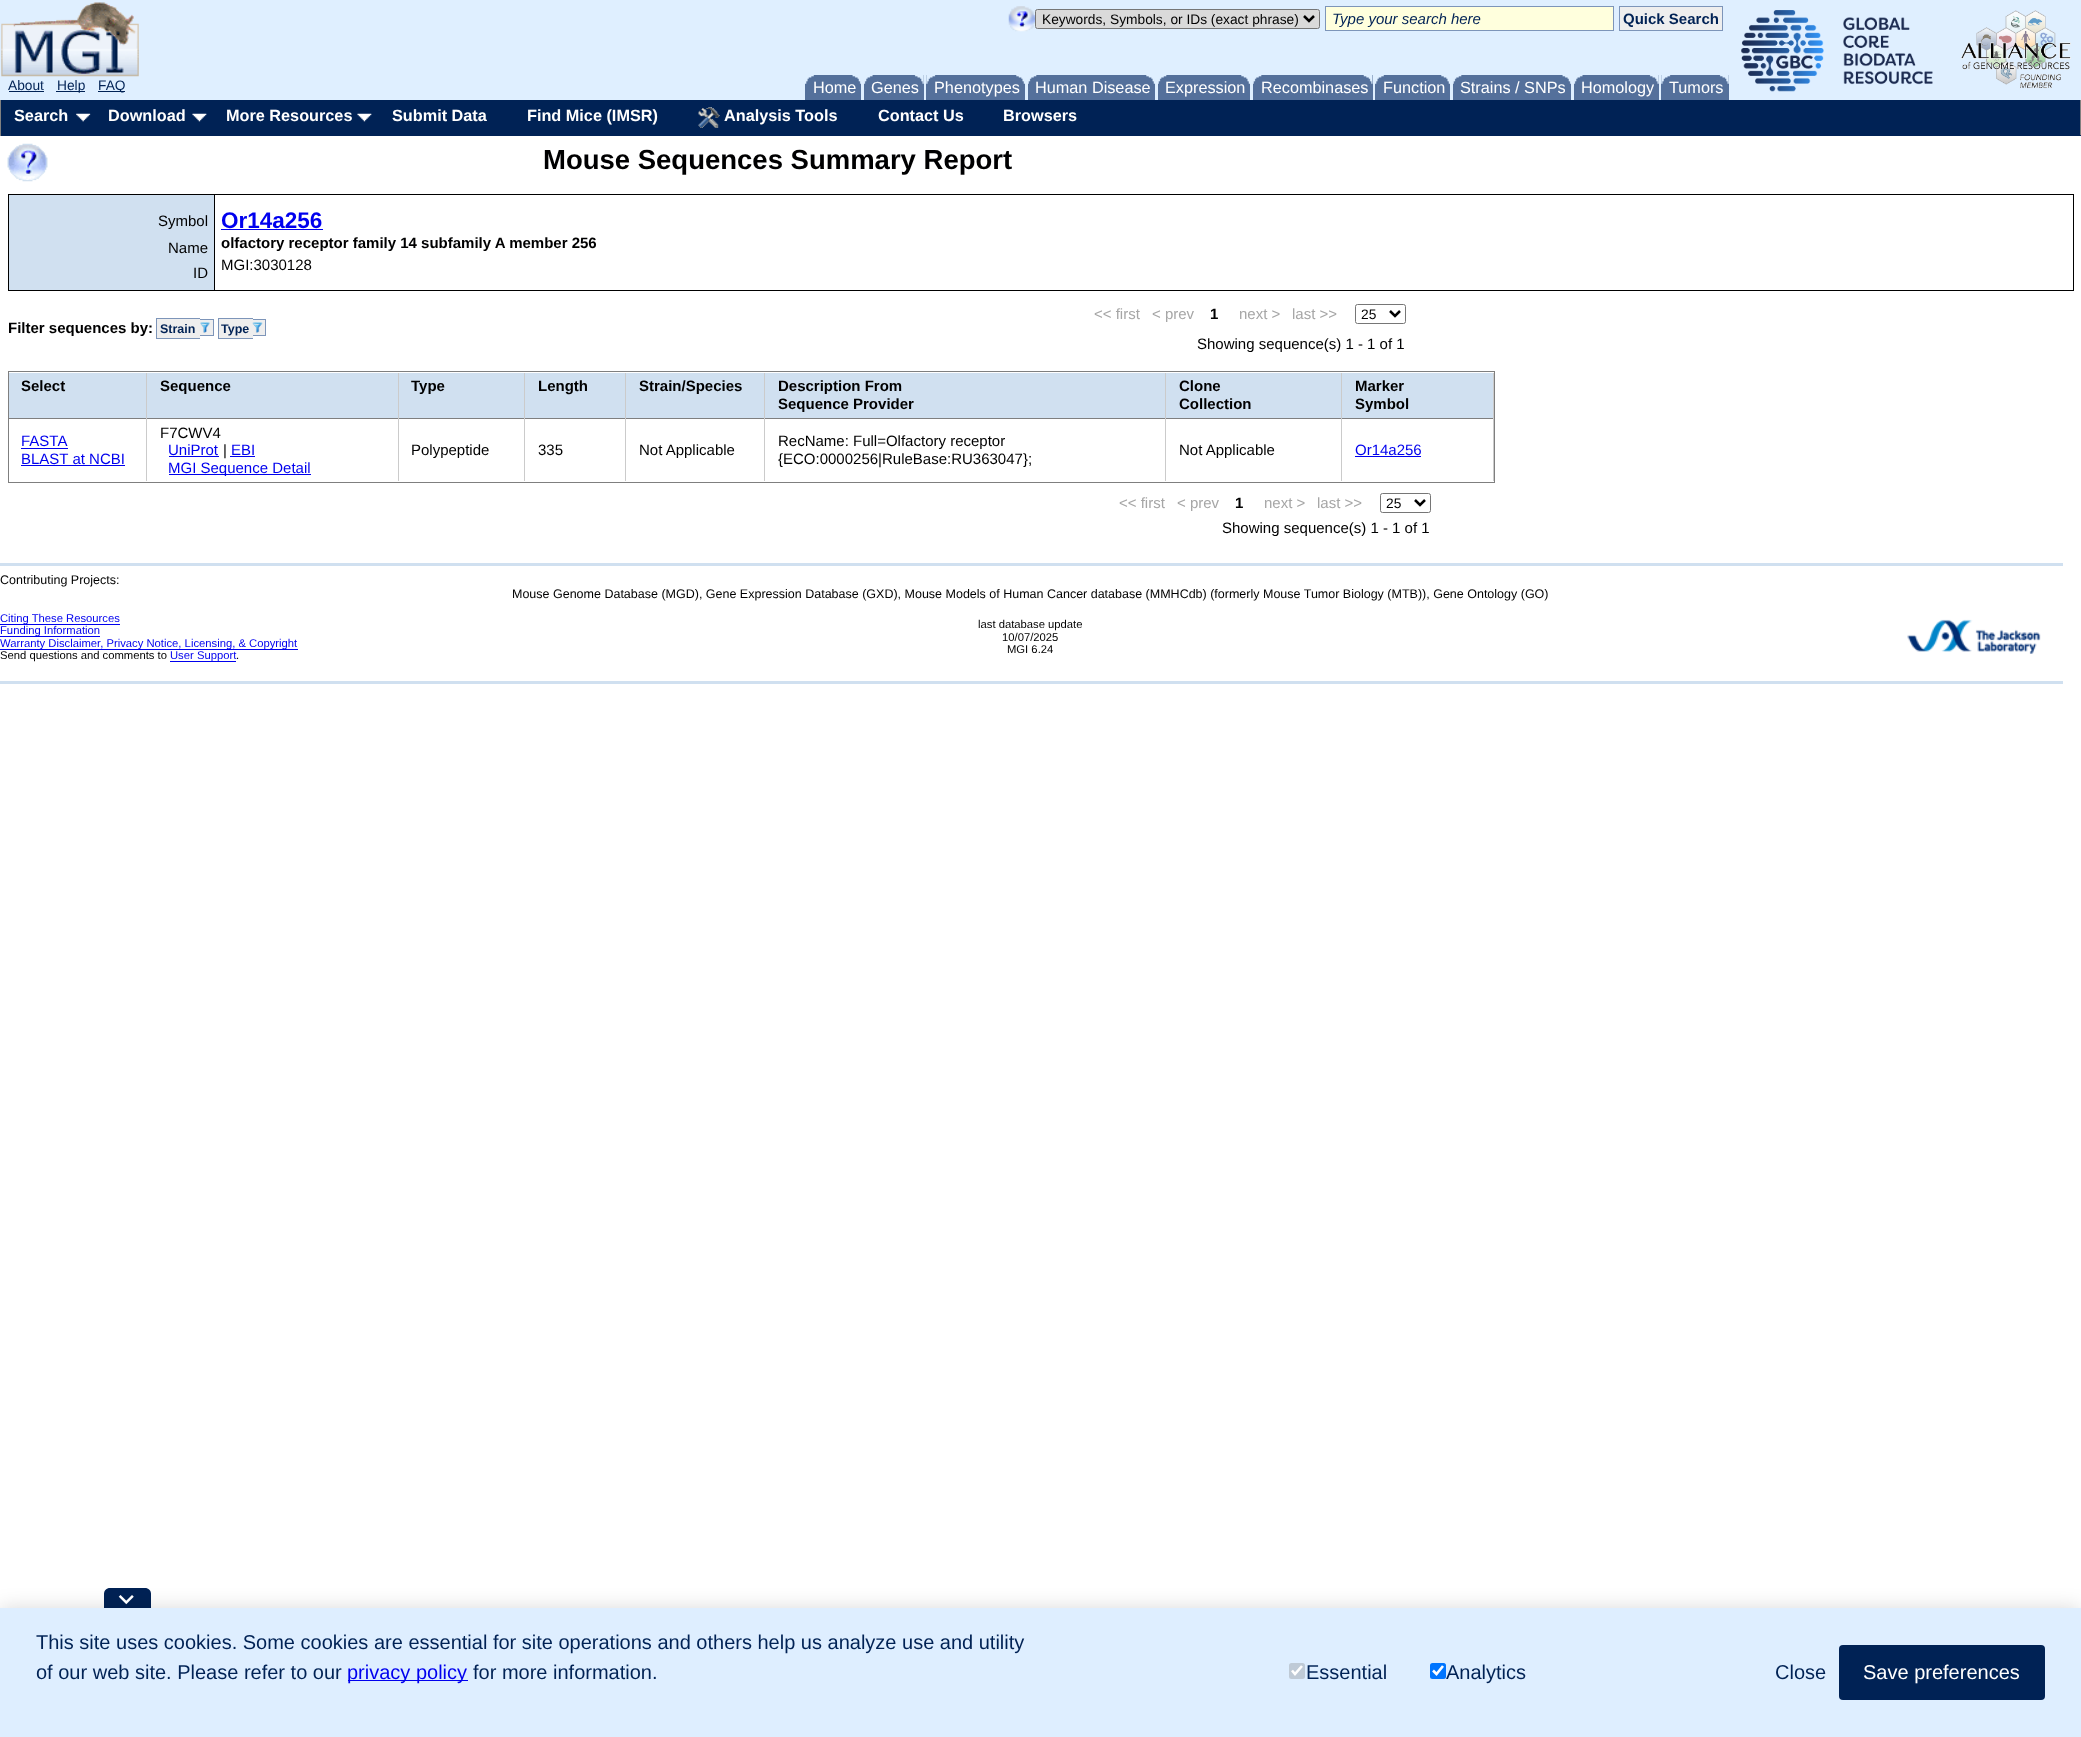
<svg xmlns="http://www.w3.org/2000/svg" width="2081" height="1737">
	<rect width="100%" height="100%" fill="#FFFFFF" />
	<rect x="0" y="0" width="2081" height="100" fill="#DFEFFF" />
	<image x="1008" y="6" width="27" height="26" href="assets/img1.png" />
	<rect x="1035.5" y="9.5" width="284" height="19" rx="2" fill="#DADADA" stroke="#767676" />
	<path d="M1304 16L1309 21L1314 16" fill="none" stroke="#000000" stroke-width="2.5" />
	<text x="1042" y="24" font-family="Liberation Sans" font-size="13.75" fill="#000001">Keywords, Symbols, or IDs (exact phrase)</text>
	<rect x="1325.5" y="6.5" width="288" height="24" fill="#FFFFDD" stroke="#7D95B9" />
	<text x="1332" y="24" font-family="Liberation Sans" font-size="15" font-style="italic" fill="#002255">Type your search here</text>
	<rect x="1619.5" y="6.5" width="103" height="24" fill="#EEEEEE" stroke="#7D95B9" />
	<text x="1623" y="24" font-family="Liberation Sans" font-size="15" font-weight="700" fill="#002255">Quick Search</text>
	<image x="1741" y="10" width="192" height="82" href="assets/img2.png" />
	<image x="1961" y="10" width="110" height="79" href="assets/img3.png" />
	<image x="1" y="2" width="138" height="75" href="assets/img4.png" />
	<text x="8" y="90" font-family="Liberation Sans" font-size="13.75" fill="#002255">About</text>
	<rect x="9" y="91" width="35" height="1" fill="#002255" />
	<rect x="56" y="91" width="29" height="1" fill="#002255" />
	<text x="57" y="90" font-family="Liberation Sans" font-size="13.75" fill="#002255">Help</text>
	<rect x="98" y="91" width="27" height="1" fill="#002255" />
	<text x="98" y="90" font-family="Liberation Sans" font-size="13.75" fill="#002255">FAQ</text>
	<rect x="805" y="75" width="56" height="25" fill="#54709B" />
	<image x="805" y="75" width="9" height="9" href="assets/img5.png" />
	<image x="852" y="75" width="9" height="9" href="assets/img6.png" />
	<text x="813" y="93" font-family="Liberation Sans" font-size="16.25" fill="#FFFFFF">Home</text>
	<rect x="864" y="75" width="60" height="25" fill="#54709B" />
	<image x="864" y="75" width="9" height="9" href="assets/img7.png" />
	<image x="914" y="75" width="10" height="9" href="assets/img8.png" />
	<text x="871" y="93" font-family="Liberation Sans" font-size="16.25" fill="#FFFFFF">Genes</text>
	<rect x="926" y="75" width="99" height="25" fill="#54709B" />
	<image x="926" y="75" width="10" height="9" href="assets/img9.png" />
	<image x="1016" y="75" width="9" height="9" href="assets/img10.png" />
	<text x="934" y="93" font-family="Liberation Sans" font-size="16.25" fill="#FFFFFF">Phenotypes</text>
	<rect x="1028" y="75" width="127" height="25" fill="#54709B" />
	<image x="1028" y="75" width="9" height="9" href="assets/img11.png" />
	<image x="1146" y="75" width="9" height="9" href="assets/img12.png" />
	<text x="1035" y="93" font-family="Liberation Sans" font-size="16.25" fill="#FFFFFF">Human Disease</text>
	<rect x="1158" y="75" width="92" height="25" fill="#54709B" />
	<image x="1158" y="75" width="9" height="9" href="assets/img11.png" />
	<image x="1241" y="75" width="9" height="9" href="assets/img10.png" />
	<text x="1165" y="93" font-family="Liberation Sans" font-size="16.25" fill="#FFFFFF">Expression</text>
	<rect x="1253" y="75" width="120" height="25" fill="#54709B" />
	<image x="1253" y="75" width="9" height="9" href="assets/img11.png" />
	<image x="1363" y="75" width="10" height="9" href="assets/img13.png" />
	<text x="1261" y="93" font-family="Liberation Sans" font-size="16.25" fill="#FFFFFF">Recombinases</text>
	<rect x="1375" y="75" width="75" height="25" fill="#54709B" />
	<image x="1375" y="75" width="9" height="9" href="assets/img14.png" />
	<image x="1441" y="75" width="9" height="9" href="assets/img10.png" />
	<text x="1383" y="93" font-family="Liberation Sans" font-size="16.25" fill="#FFFFFF">Function</text>
	<rect x="1453" y="75" width="118" height="25" fill="#54709B" />
	<image x="1453" y="75" width="9" height="9" href="assets/img11.png" />
	<image x="1562" y="75" width="9" height="9" href="assets/img6.png" />
	<text x="1460" y="93" font-family="Liberation Sans" font-size="16.25" fill="#FFFFFF">Strains / SNPs</text>
	<rect x="1574" y="75" width="85" height="25" fill="#54709B" />
	<image x="1574" y="75" width="9" height="9" href="assets/img15.png" />
	<image x="1649" y="75" width="10" height="9" href="assets/img8.png" />
	<text x="1581" y="93" font-family="Liberation Sans" font-size="16.25" fill="#FFFFFF">Homology</text>
	<rect x="1661" y="75" width="68" height="25" fill="#54709B" />
	<image x="1661" y="75" width="10" height="9" href="assets/img9.png" />
	<image x="1719" y="75" width="10" height="9" href="assets/img8.png" />
	<text x="1669" y="93" font-family="Liberation Sans" font-size="16.25" fill="#FFFFFF">Tumors</text>
	<rect x="1" y="100" width="2079" height="35" fill="#002255" />
	<rect x="2080" y="100" width="1" height="36" fill="#808080" />
	<rect x="0" y="135" width="2081" height="1" fill="#002255" />
	<rect x="0" y="100" width="1" height="36" fill="#808080" />
	<image x="76" y="113" width="15" height="9" href="assets/img16.png" />
	<text x="14" y="121" font-family="Liberation Sans" font-size="16.25" font-weight="700" fill="#FFFFFF">Search</text>
	<image x="192" y="113" width="15" height="9" href="assets/img17.png" />
	<text x="108" y="121" font-family="Liberation Sans" font-size="16.25" font-weight="700" fill="#FFFFFF">Download</text>
	<image x="357" y="113" width="15" height="9" href="assets/img18.png" />
	<g font-family="Liberation Sans" font-size="16.25" font-weight="700" fill="#FFFFFF">
		<text x="226" y="121">More Resources</text>
		<text x="392" y="121">Submit Data</text>
		<text x="527" y="121">Find Mice (IMSR)</text>
	</g>
	<image x="698" y="107" width="22" height="21" href="assets/img19.png" />
	<g font-family="Liberation Sans" font-size="16.25" font-weight="700" fill="#FFFFFF">
		<text x="724" y="121">Analysis Tools</text>
		<text x="878" y="121">Contact Us</text>
		<text x="1003" y="121">Browsers</text>
	</g>
	<image x="7" y="143" width="41" height="39" href="assets/img20.png" />
	<text x="543" y="169" font-family="Liberation Sans" font-size="27.5" font-weight="700" fill="#000001">Mouse Sequences Summary Report</text>
	<rect x="8" y="194" width="2066" height="1" fill="#000000" />
	<rect x="2073" y="194" width="1" height="97" fill="#000000" />
	<rect x="8" y="290" width="2066" height="1" fill="#000000" />
	<rect x="8" y="194" width="1" height="97" fill="#000000" />
	<rect x="9" y="195" width="205" height="95" fill="#D0E0F0" />
	<g font-family="Liberation Sans" font-size="15" fill="#000001">
		<text x="158" y="226">Symbol</text>
		<text x="168" y="253">Name</text>
		<text x="193" y="278">ID</text>
	</g>
	<rect x="214" y="194" width="1" height="97" fill="#000000" />
	<text x="221" y="228" font-family="Liberation Sans" font-size="22.5" font-weight="700" fill="#0000EE">Or14a256</text>
	<rect x="221" y="229" width="102" height="1" fill="#0000EE" />
	<text x="221" y="248" font-family="Liberation Sans" font-size="15" font-weight="700" fill="#000001">olfactory receptor family 14 subfamily A member 256</text>
	<text x="221" y="270" font-family="Liberation Sans" font-size="15" fill="#000001">MGI:3030128</text>
	<text x="8" y="333" font-family="Liberation Sans" font-size="15" font-weight="700" fill="#000001">Filter sequences by:</text>
	<rect x="157" y="319" width="43" height="19" fill="#EEEEEE" />
	<text x="160" y="333" font-family="Liberation Sans" font-size="12.5" font-weight="700" fill="#002255">Strain</text>
	<rect x="156" y="318" width="44" height="1" fill="#7D95B9" />
	<rect x="156" y="338" width="44" height="1" fill="#7D95B9" />
	<rect x="156" y="318" width="1" height="21" fill="#7D95B9" />
	<rect x="200" y="320" width="13" height="15" fill="#EEEEEE" />
	<rect x="200" y="319" width="14" height="1" fill="#7D95B9" />
	<rect x="213" y="319" width="1" height="17" fill="#7D95B9" />
	<rect x="200" y="335" width="14" height="1" fill="#7D95B9" />
	<image x="200" y="322" width="10" height="11" href="assets/img21.png" />
	<rect x="219" y="319" width="34" height="19" fill="#EEEEEE" />
	<text x="221" y="333" font-family="Liberation Sans" font-size="12.5" font-weight="700" fill="#002255">Type</text>
	<rect x="218" y="318" width="35" height="1" fill="#7D95B9" />
	<rect x="218" y="338" width="35" height="1" fill="#7D95B9" />
	<rect x="218" y="318" width="1" height="21" fill="#7D95B9" />
	<rect x="253" y="320" width="12" height="15" fill="#EEEEEE" />
	<rect x="253" y="319" width="13" height="1" fill="#7D95B9" />
	<rect x="265" y="319" width="1" height="17" fill="#7D95B9" />
	<rect x="253" y="335" width="13" height="1" fill="#7D95B9" />
	<image x="252" y="322" width="11" height="11" href="assets/img22.png" />
	<g font-family="Liberation Sans" font-size="15" fill="#A6A6A6">
		<text x="1094" y="319">&lt;&lt; first</text>
		<text x="1152" y="319">&lt; prev</text>
	</g>
	<text x="1210" y="319" font-family="Liberation Sans" font-size="15" font-weight="700" fill="#000001">1</text>
	<g font-family="Liberation Sans" font-size="15" fill="#A6A6A6">
		<text x="1239" y="319">next &gt;</text>
		<text x="1292" y="319">last &gt;&gt;</text>
	</g>
	<rect x="1355.5" y="304.5" width="50" height="19" rx="2" fill="none" stroke="#767676" />
	<path d="M1390 311L1395 316L1400 311" fill="none" stroke="#000000" stroke-width="2.5" />
	<text x="1361" y="319" font-family="Liberation Sans" font-size="13.75" fill="#000001">25</text>
	<text x="1197" y="349" font-family="Liberation Sans" font-size="15" fill="#000001">Showing sequence(s) 1 - 1 of 1</text>
	<rect x="8.5" y="371.5" width="1486" height="111" fill="none" stroke="#7F7F7F" />
	<rect x="9" y="373" width="389" height="45" fill="#D0E0F0" />
	<rect x="146" y="373" width="1" height="45" fill="#CBCBCB" />
	<text x="21" y="391" font-family="Liberation Sans" font-size="15" font-weight="700" fill="#000001">Select</text>
	<rect x="398" y="373" width="1" height="45" fill="#CBCBCB" />
	<text x="160" y="391" font-family="Liberation Sans" font-size="15" font-weight="700" fill="#000001">Sequence</text>
	<rect x="399" y="373" width="125" height="45" fill="#D0E0F0" />
	<rect x="524" y="373" width="1" height="45" fill="#CBCBCB" />
	<text x="411" y="391" font-family="Liberation Sans" font-size="15" font-weight="700" fill="#000001">Type</text>
	<rect x="525" y="373" width="100" height="45" fill="#D0E0F0" />
	<rect x="625" y="373" width="1" height="45" fill="#CBCBCB" />
	<text x="538" y="391" font-family="Liberation Sans" font-size="15" font-weight="700" fill="#000001">Length</text>
	<rect x="626" y="373" width="138" height="45" fill="#D0E0F0" />
	<rect x="764" y="373" width="1" height="45" fill="#CBCBCB" />
	<text x="639" y="391" font-family="Liberation Sans" font-size="15" font-weight="700" fill="#000001">Strain/Species</text>
	<rect x="765" y="373" width="400" height="45" fill="#D0E0F0" />
	<rect x="1165" y="373" width="1" height="45" fill="#CBCBCB" />
	<g font-family="Liberation Sans" font-size="15" font-weight="700" fill="#000001">
		<text x="778" y="391">Description From</text>
		<text x="778" y="409">Sequence Provider</text>
	</g>
	<rect x="1166" y="373" width="327" height="45" fill="#D0E0F0" />
	<rect x="1341" y="373" width="1" height="45" fill="#CBCBCB" />
	<g font-family="Liberation Sans" font-size="15" font-weight="700" fill="#000001">
		<text x="1179" y="391">Clone</text>
		<text x="1179" y="409">Collection</text>
	</g>
	<rect x="1493" y="373" width="1" height="45" fill="#CBCBCB" />
	<g font-family="Liberation Sans" font-size="15" font-weight="700" fill="#000001">
		<text x="1355" y="391">Marker</text>
		<text x="1355" y="409">Symbol</text>
	</g>
	<rect x="9" y="418" width="1485" height="1" fill="#7F7F7F" />
	<rect x="146" y="418" width="1" height="63" fill="#CBCBCB" />
	<text x="21" y="446" font-family="Liberation Sans" font-size="15" fill="#0000EE">FASTA</text>
	<rect x="21" y="448" width="47" height="1" fill="#0000EE" />
	<text x="21" y="464" font-family="Liberation Sans" font-size="15" fill="#0000EE">BLAST at NCBI</text>
	<rect x="21" y="465" width="104" height="1" fill="#0000EE" />
	<rect x="398" y="418" width="1" height="63" fill="#CBCBCB" />
	<text x="160" y="438" font-family="Liberation Sans" font-size="15" fill="#000001">F7CWV4</text>
	<text x="168" y="455" font-family="Liberation Sans" font-size="15" fill="#0000EE">UniProt</text>
	<rect x="169" y="456" width="50" height="1" fill="#0000EE" />
	<text x="223" y="455" font-family="Liberation Sans" font-size="15" fill="#000001">|</text>
	<text x="231" y="455" font-family="Liberation Sans" font-size="15" fill="#0000EE">EBI</text>
	<rect x="230" y="456" width="25" height="1" fill="#0000EE" />
	<rect x="169" y="474" width="142" height="1" fill="#0000EE" />
	<text x="168" y="473" font-family="Liberation Sans" font-size="15" fill="#0000EE">MGI Sequence Detail</text>
	<rect x="524" y="418" width="1" height="63" fill="#CBCBCB" />
	<text x="411" y="455" font-family="Liberation Sans" font-size="15" fill="#000001">Polypeptide</text>
	<rect x="625" y="418" width="1" height="63" fill="#CBCBCB" />
	<text x="538" y="455" font-family="Liberation Sans" font-size="15" fill="#000001">335</text>
	<rect x="764" y="418" width="1" height="63" fill="#CBCBCB" />
	<text x="639" y="455" font-family="Liberation Sans" font-size="15" fill="#000001">Not Applicable</text>
	<rect x="1165" y="418" width="1" height="63" fill="#CBCBCB" />
	<g font-family="Liberation Sans" font-size="15" fill="#000001">
		<text x="778" y="446">RecName: Full=Olfactory receptor</text>
		<text x="778" y="464">{ECO:0000256|RuleBase:RU363047};</text>
	</g>
	<rect x="1341" y="418" width="1" height="63" fill="#CBCBCB" />
	<text x="1179" y="455" font-family="Liberation Sans" font-size="15" fill="#000001">Not Applicable</text>
	<rect x="1493" y="418" width="1" height="63" fill="#CBCBCB" />
	<text x="1355" y="455" font-family="Liberation Sans" font-size="15" fill="#0000EE">Or14a256</text>
	<rect x="1355" y="456" width="66" height="1" fill="#0000EE" />
	<g font-family="Liberation Sans" font-size="15" fill="#A6A6A6">
		<text x="1119" y="508">&lt;&lt; first</text>
		<text x="1177" y="508">&lt; prev</text>
	</g>
	<text x="1235" y="508" font-family="Liberation Sans" font-size="15" font-weight="700" fill="#000001">1</text>
	<g font-family="Liberation Sans" font-size="15" fill="#A6A6A6">
		<text x="1264" y="508">next &gt;</text>
		<text x="1317" y="508">last &gt;&gt;</text>
	</g>
	<rect x="1380.5" y="493.5" width="50" height="19" rx="2" fill="none" stroke="#767676" />
	<path d="M1415 500L1420 505L1425 500" fill="none" stroke="#000000" stroke-width="2.5" />
	<text x="1386" y="508" font-family="Liberation Sans" font-size="13.75" fill="#000001">25</text>
	<text x="1222" y="533" font-family="Liberation Sans" font-size="15" fill="#000001">Showing sequence(s) 1 - 1 of 1</text>
	<rect x="0" y="563" width="2063" height="3" fill="#D0E0F0" />
	<g font-family="Liberation Sans" font-size="12.5" fill="#000001">
		<text x="0" y="584">Contributing Projects:</text>
		<text x="512" y="598">Mouse Genome Database (MGD), Gene Expression Database (GXD), Mouse Models of Human Cancer database (MMHCdb) (formerly Mouse Tumor Biology (MTB)), Gene Ontology (GO)</text>
	</g>
	<rect x="0" y="624" width="120" height="1" fill="#0000EE" />
	<text x="0" y="622" font-family="Liberation Sans" font-size="11.25" fill="#0000EE">Citing These Resources</text>
	<rect x="0" y="636" width="100" height="1" fill="#0000EE" />
	<text x="0" y="634" font-family="Liberation Sans" font-size="11.25" fill="#0000EE">Funding Information</text>
	<rect x="0" y="649" width="298" height="1" fill="#0000EE" />
	<text x="0" y="647" font-family="Liberation Sans" font-size="11.25" fill="#0000EE">Warranty Disclaimer, Privacy Notice, Licensing, &amp; Copyright</text>
	<text x="0" y="659" font-family="Liberation Sans" font-size="11.25" fill="#000001">Send questions and comments to</text>
	<rect x="170" y="661" width="66" height="1" fill="#0000EE" />
	<text x="170" y="659" font-family="Liberation Sans" font-size="11.25" fill="#0000EE">User Support</text>
	<g font-family="Liberation Sans" font-size="11.25" fill="#000001">
		<text x="236" y="659">.</text>
		<text x="978" y="628">last database update</text>
		<text x="1002" y="641">10/07/2025</text>
		<text x="1007" y="653">MGI 6.24</text>
	</g>
	<image x="1907" y="619" width="134" height="35" href="assets/img23.png" />
	<rect x="0" y="681" width="2063" height="3" fill="#D0E0F0" />
	<path d="M110 1588H145C148.5 1588 151 1590.5 151 1594V1608H104V1594C104 1590.5 106.5 1588 110 1588Z" fill="#002255" />
	<rect x="0" y="1608" width="2081" height="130" fill="#000000" fill-opacity="0.15" filter="blur(10px)" />
	<image x="118" y="1595" width="16" height="10" href="assets/img24.png" />
	<rect x="0" y="1608" width="2081" height="129" fill="#DEEEFF" />
	<g font-family="Liberation Sans" font-size="20" fill="#002255">
		<text x="36" y="1649">This site uses cookies. Some cookies are essential for site operations and others help us analyze use and utility</text>
		<text x="36" y="1679">of our web site. Please refer to our</text>
	</g>
	<rect x="348" y="1680" width="120" height="1" fill="#0000EE" />
	<text x="347" y="1679" font-family="Liberation Sans" font-size="20" fill="#0000EE">privacy policy</text>
	<text x="473" y="1679" font-family="Liberation Sans" font-size="20" fill="#002255">for more information.</text>
	<rect x="1289" y="1663" width="16" height="16" rx="2.5" fill="#BFCAD6" />
	<path d="M1292 1670.5L1295 1674L1302 1666" fill="none" stroke="#FFFFFF" stroke-width="2.6" />
	<text x="1306" y="1679" font-family="Liberation Sans" font-size="20" fill="#002255">Essential</text>
	<rect x="1430" y="1663" width="16" height="16" rx="2.5" fill="#0075FF" />
	<path d="M1433 1670.5L1436.5 1674L1443 1666" fill="none" stroke="#FFFFFF" stroke-width="2.6" />
	<g font-family="Liberation Sans" font-size="20" fill="#002255">
		<text x="1446" y="1679">Analytics</text>
		<text x="1775" y="1679">Close</text>
	</g>
	<rect x="1839" y="1645" width="206" height="55" rx="4" fill="#002255" />
	<text x="1863" y="1679" font-family="Liberation Sans" font-size="20" fill="#FFFFFF">Save preferences</text>
</svg>
